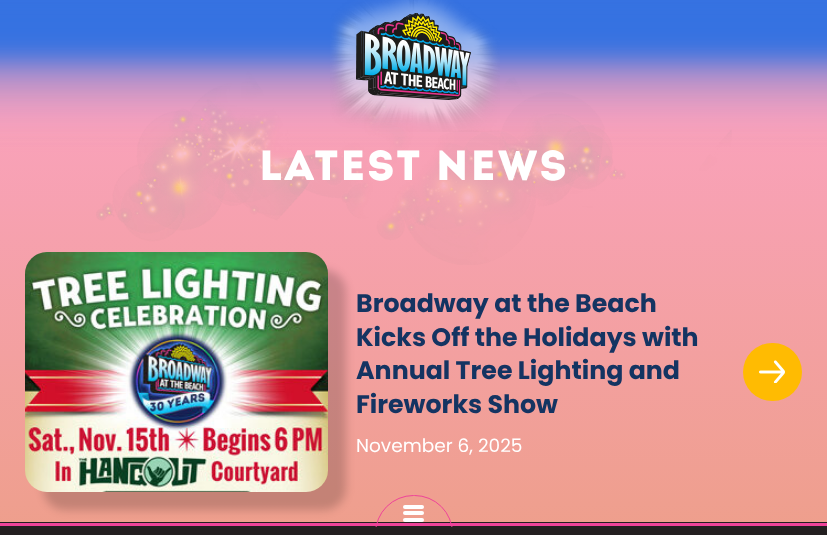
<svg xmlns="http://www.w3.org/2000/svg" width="827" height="535">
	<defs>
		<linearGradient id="g1" gradientUnits="userSpaceOnUse" x1="413" y1="88" x2="414" y2="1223"><stop offset="0" stop-color="#FAA2BE" /><stop offset="0.6" stop-color="#E89D71" /><stop offset="1" stop-color="#94D077" /></linearGradient>
		<clipPath id="clip1"><rect x="360" y="478" width="107" height="49" /></clipPath>
	</defs>
	<rect width="100%" height="100%" fill="#3672E1" />
	<rect x="0" y="88" width="827" height="434" fill="url(#g1)" />
	<rect x="-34" y="54" width="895" height="69" fill="#FAA2BE" filter="blur(12.5px)" />
	<image x="96" y="35" width="636" height="230" href="assets/img3.png" />
	<rect x="-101" y="-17" width="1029" height="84" fill="#3672E1" filter="blur(33.5px)" />
	<image x="330" y="0" width="170" height="132" href="assets/img1.png" />
	<image x="356" y="13" width="115" height="87" href="assets/img2.png" />
	<rect x="43" y="270" width="303" height="240" rx="22" fill="#000000" fill-opacity="0.18" filter="blur(4.5px)" />
	<rect x="0" y="522" width="827" height="13" fill="#231F20" />
	<rect x="0" y="523" width="827" height="3" fill="#EE4399" />
	<g clip-path="url(#clip1)">
		<rect x="375.5" y="495.5" width="77" height="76" rx="38" fill="none" stroke="#EE4399" />
	</g>
	<rect x="403" y="511" width="21" height="4" rx="2" fill="#FFFFFF" />
	<rect x="403" y="505" width="21" height="4" rx="2" fill="#FFFFFF" />
	<rect x="403" y="518" width="21" height="4" rx="2" fill="#FFFFFF" />
	<text x="259" y="180" font-family="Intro" font-size="42" letter-spacing="2" fill="#FFFFFF">Latest News</text>
	<image x="25" y="252" width="303" height="240" href="assets/img4.png" />
	<g font-family="Poppins" font-size="25.25" font-weight="700" fill="#143462">
		<text x="356" y="312">Broadway at the Beach</text>
		<text x="356" y="346">Kicks Off the Holidays with</text>
		<text x="356" y="379">Annual Tree Lighting and</text>
		<text x="356" y="413">Fireworks Show</text>
	</g>
	<text x="356" y="452" font-family="Poppins" font-size="18.5" fill="#FFFFFF">November 6, 2025</text>
	<rect x="743" y="343" width="59" height="58" rx="29" fill="#FFBB02" />
	<image x="759" y="360" width="26" height="23" href="assets/img5.png" />
</svg>
